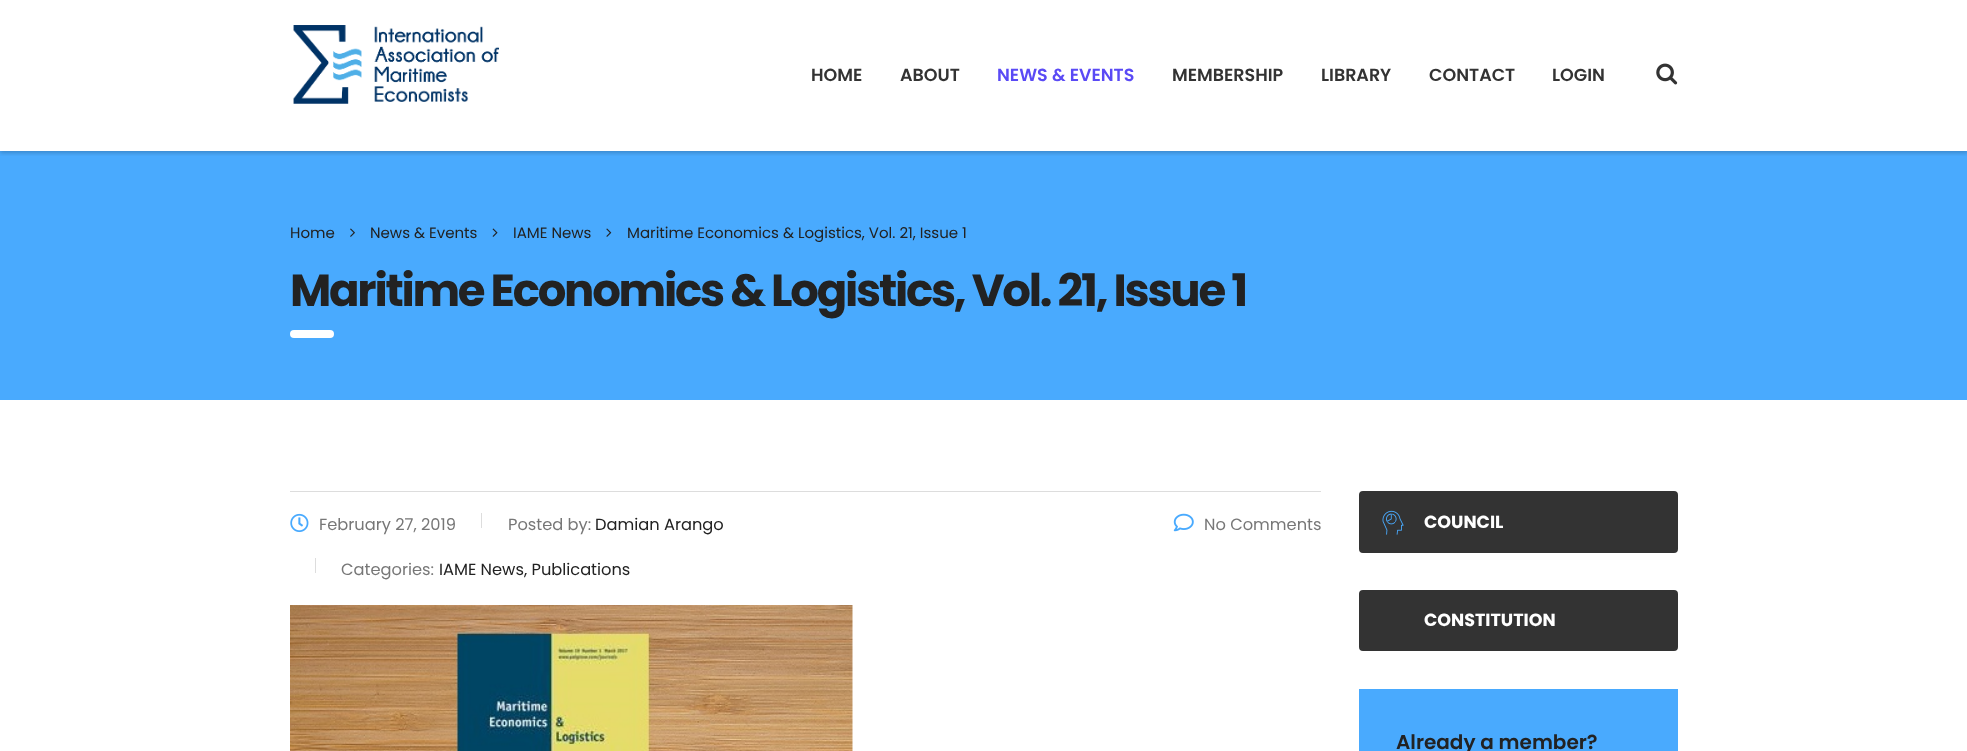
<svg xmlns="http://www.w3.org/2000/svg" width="1967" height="751">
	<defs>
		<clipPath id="clip1"><rect x="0" y="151" width="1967" height="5" /></clipPath>
	</defs>
	<rect width="100%" height="100%" fill="#FFFFFF" />
	<rect x="0" y="151" width="1967" height="249" fill="#49AAFE" />
	<g clip-path="url(#clip1)">
		<rect x="0" y="1" width="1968" height="152" fill="#000000" fill-opacity="0.2" filter="blur(2px)" />
	</g>
	<image x="293" y="25" width="206" height="79" href="assets/img1.png" />
	<g font-family="Poppins" font-size="17.5" font-weight="600" fill="#333333">
		<text x="811" y="81">HOME</text>
		<text x="900" y="81">ABOUT</text>
	</g>
	<text x="997" y="81" font-family="Poppins" font-size="17.5" font-weight="600" fill="#5A4AF5">NEWS &amp; EVENTS</text>
	<g font-family="Poppins" font-size="17.5" font-weight="600" fill="#333333">
		<text x="1172" y="81">MEMBERSHIP</text>
		<text x="1321" y="81">LIBRARY</text>
		<text x="1429" y="81">CONTACT</text>
		<text x="1552" y="81">LOGIN</text>
	</g>
	<image x="1656" y="63" width="22" height="22" href="assets/img2.png" />
	<text x="290" y="238" font-family="Poppins" font-size="15" fill="#222222">Home</text>
	<image x="350" y="228" width="5" height="9" href="assets/img3.png" />
	<text x="370" y="238" font-family="Poppins" font-size="15" fill="#222222">News &amp; Events</text>
	<image x="492" y="228" width="6" height="9" href="assets/img4.png" />
	<text x="513" y="238" font-family="Poppins" font-size="15" fill="#222222">IAME News</text>
	<image x="606" y="228" width="6" height="9" href="assets/img5.png" />
	<text x="627" y="238" font-family="Poppins" font-size="15" fill="#222222">Maritime Economics &amp; Logistics, Vol. 21, Issue 1</text>
	<text x="290" y="306" font-family="Poppins" font-size="45" font-weight="700" letter-spacing="-2.25" fill="#222222">Maritime Economics &amp; Logistics, Vol. 21, Issue 1</text>
	<rect x="290" y="330" width="44" height="8" rx="4" fill="#FFFFFF" />
	<rect x="290" y="491" width="1031" height="1" fill="#DDDDDD" />
	<image x="290" y="513" width="19" height="20" href="assets/img6.png" />
	<text x="319" y="530" font-family="Poppins" font-size="16.25" fill="#777777">February 27, 2019</text>
	<rect x="481" y="513" width="1" height="15" fill="#DDDDDD" />
	<text x="508" y="530" font-family="Poppins" font-size="16.25" fill="#777777">Posted by:</text>
	<text x="595" y="530" font-family="Poppins" font-size="16.25" fill="#222222">Damian Arango</text>
	<rect x="315" y="558" width="1" height="15" fill="#DDDDDD" />
	<text x="341" y="575" font-family="Poppins" font-size="16.25" fill="#777777">Categories:</text>
	<text x="439" y="575" font-family="Poppins" font-size="16.25" fill="#222222">IAME News, Publications</text>
	<image x="1173" y="513" width="21" height="19" href="assets/img7.png" />
	<text x="1204" y="530" font-family="Poppins" font-size="16.25" fill="#777777">No Comments</text>
	<image x="290" y="605" width="563" height="146" href="assets/img8.png" />
	<rect x="1361" y="493" width="315" height="58" rx="2" fill="#333333" stroke="#333333" stroke-width="4" />
	<image x="1382" y="510" width="22" height="25" href="assets/img9.png" />
	<text x="1424" y="528" font-family="Poppins" font-size="17.5" font-weight="700" fill="#FFFFFF">COUNCIL</text>
	<rect x="1361" y="592" width="315" height="57" rx="2" fill="#333333" stroke="#333333" stroke-width="4" />
	<text x="1424" y="626" font-family="Poppins" font-size="17.5" font-weight="700" fill="#FFFFFF">CONSTITUTION</text>
	<rect x="1359" y="689" width="319" height="62" fill="#49AAFE" />
	<text x="1396" y="749" font-family="Poppins" font-size="20" font-weight="600" fill="#222222">Already a member?</text>
</svg>
